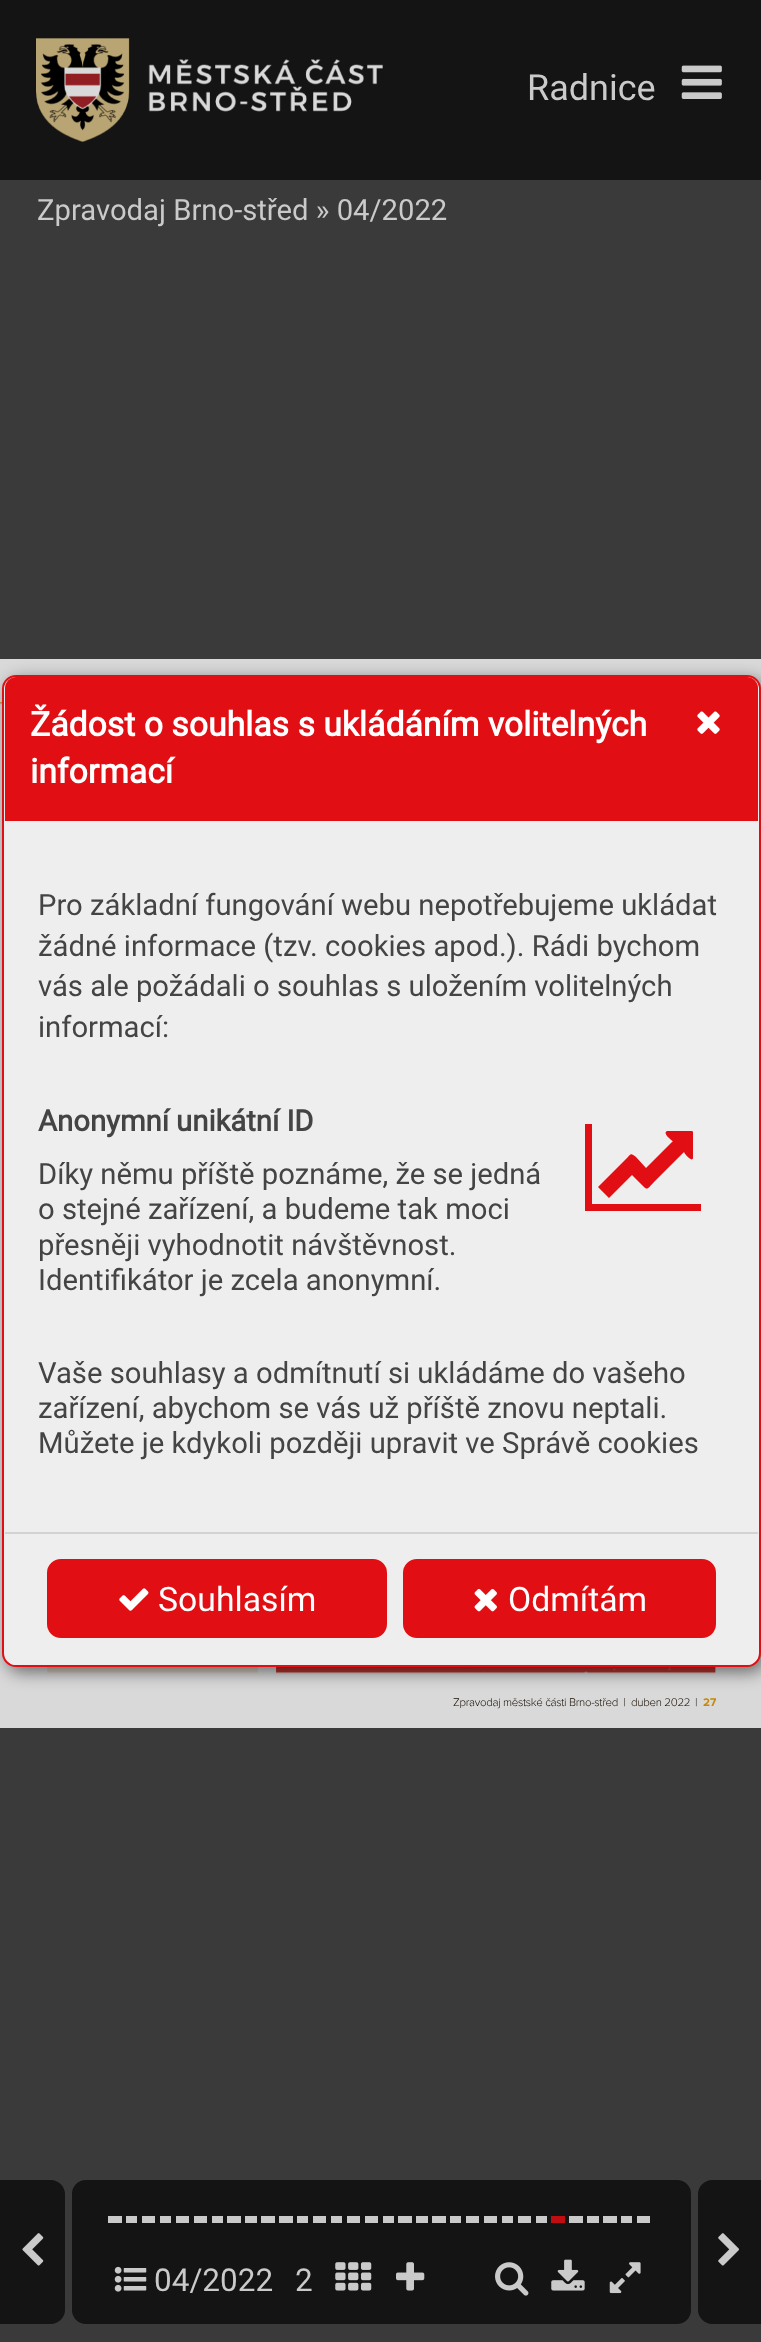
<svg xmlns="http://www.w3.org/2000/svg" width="761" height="2342">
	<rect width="100%" height="100%" fill="#3A3A3A" />
	<rect x="0" y="0" width="761" height="180" fill="#141414" />
	<image x="36" y="38" width="347" height="104" href="assets/img1.png" />
	<text x="527" y="100" font-family="Roboto" font-size="36" fill="#CACACA">Radnice</text>
	<image x="681" y="65" width="41" height="34" href="assets/img2.png" />
	<text x="37" y="220" font-family="Roboto" font-size="29.25" fill="#CACACA">Zpravodaj Brno-střed » 04/2022</text>
	<path d="M0 2180H51C58.5 2180 65 2186.5 65 2194V2310C65 2317.5 58.5 2324 51 2324H0Z" fill="#141414" />
	<image x="22" y="2233" width="22" height="33" href="assets/img3.png" />
	<rect x="72" y="2180" width="619" height="144" rx="14" fill="#141414" />
	<rect x="108" y="2216" width="14" height="7" fill="#CACACA" />
	<rect x="126" y="2216" width="11" height="7" fill="#CACACA" />
	<rect x="142" y="2216" width="13" height="7" fill="#CACACA" />
	<rect x="160" y="2216" width="11" height="7" fill="#CACACA" />
	<rect x="176" y="2216" width="13" height="7" fill="#CACACA" />
	<rect x="194" y="2216" width="13" height="7" fill="#CACACA" />
	<rect x="212" y="2216" width="11" height="7" fill="#CACACA" />
	<rect x="227" y="2216" width="14" height="7" fill="#CACACA" />
	<rect x="245" y="2216" width="12" height="7" fill="#CACACA" />
	<rect x="261" y="2216" width="14" height="7" fill="#CACACA" />
	<rect x="279" y="2216" width="14" height="7" fill="#CACACA" />
	<rect x="297" y="2216" width="11" height="7" fill="#CACACA" />
	<rect x="313" y="2216" width="13" height="7" fill="#CACACA" />
	<rect x="331" y="2216" width="11" height="7" fill="#CACACA" />
	<rect x="347" y="2216" width="13" height="7" fill="#CACACA" />
	<rect x="365" y="2216" width="13" height="7" fill="#CACACA" />
	<rect x="383" y="2216" width="11" height="7" fill="#CACACA" />
	<rect x="398" y="2216" width="14" height="7" fill="#CACACA" />
	<rect x="416" y="2216" width="12" height="7" fill="#CACACA" />
	<rect x="432" y="2216" width="14" height="7" fill="#CACACA" />
	<rect x="450" y="2216" width="11" height="7" fill="#CACACA" />
	<rect x="466" y="2216" width="13" height="7" fill="#CACACA" />
	<rect x="484" y="2216" width="13" height="7" fill="#CACACA" />
	<rect x="502" y="2216" width="11" height="7" fill="#CACACA" />
	<rect x="518" y="2216" width="13" height="7" fill="#CACACA" />
	<rect x="536" y="2216" width="11" height="7" fill="#CACACA" />
	<rect x="569" y="2216" width="14" height="7" fill="#CACACA" />
	<rect x="587" y="2216" width="12" height="7" fill="#CACACA" />
	<rect x="603" y="2216" width="14" height="7" fill="#CACACA" />
	<rect x="621" y="2216" width="11" height="7" fill="#CACACA" />
	<rect x="637" y="2216" width="13" height="7" fill="#CACACA" />
	<rect x="551" y="2216" width="14" height="7" fill="#BF0D10" />
	<image x="114" y="2266" width="33" height="26" href="assets/img4.png" />
	<g font-family="Roboto" font-size="31.5" fill="#CACACA">
		<text x="154" y="2291">04/2022</text>
		<text x="295" y="2291">2</text>
	</g>
	<image x="335" y="2262" width="37" height="29" href="assets/img5.png" />
	<image x="396" y="2262" width="29" height="29" href="assets/img6.png" />
	<image x="495" y="2262" width="34" height="34" href="assets/img7.png" />
	<image x="551" y="2259" width="34" height="32" href="assets/img8.png" />
	<image x="609" y="2262" width="32" height="32" href="assets/img9.png" />
	<path d="M712 2180H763V2324H712C704.5 2324 698 2317.5 698 2310V2194C698 2186.5 704.5 2180 712 2180Z" fill="#141414" />
	<image x="718" y="2233" width="21" height="33" href="assets/img10.png" />
	<rect x="0" y="659" width="761" height="1069" fill="#D9D9D9" />
	<image x="0" y="702" width="716" height="972" href="assets/img11.png" />
	<text x="453" y="1706" font-family="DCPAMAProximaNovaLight" font-size="11.5" font-weight="300" letter-spacing="-0.3" fill="#180C00">Zpravodaj městské části Brno-střed | duben 2022</text>
	<text x="695" y="1706" font-family="DCPAMAProximaNovaLight" font-size="11.5" font-weight="300" fill="#180C00">|</text>
	<text x="703" y="1706" font-family="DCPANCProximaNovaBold" font-size="11.5" font-weight="700" fill="#C68809">27</text>
	<rect x="7" y="680" width="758" height="992" rx="14" fill="#000000" fill-opacity="0.53" filter="blur(8.5px)" />
	<rect x="3" y="676" width="757" height="990" rx="13" fill="#EEEEEE" stroke="#E10F13" stroke-width="2" />
	<path d="M16 677H747C753 677 758 682 758 688V821H5V688C5 682 10 677 16 677Z" fill="#E10F13" />
	<text x="30" y="736" font-family="Roboto" font-size="33.75" font-weight="700" fill="#FFFFFF">Žádost o souhlas s ukládáním volitelných</text>
	<image x="697" y="711" width="23" height="23" href="assets/img12.png" />
	<text x="30" y="783" font-family="Roboto" font-size="33.75" font-weight="700" fill="#FFFFFF">informací</text>
	<g font-family="Roboto" font-size="29.25" fill="#444444">
		<text x="38" y="915">Pro základní fungování webu nepotřebujeme ukládat</text>
		<text x="38" y="956">žádné informace (tzv. cookies apod.). Rádi bychom</text>
		<text x="38" y="996">vás ale požádali o souhlas s uložením volitelných</text>
		<text x="38" y="1037">informací:</text>
	</g>
	<text x="38" y="1131" font-family="Roboto" font-size="29.25" font-weight="700" fill="#444444">Anonymní unikátní ID</text>
	<path d="M701 1204V1211H585V1124H592V1204ZM693 1133V1158C692 1163 684 1153 684 1152L654 1182C648 1188 648 1191 643 1186L632 1175L609 1198L598 1187L625 1160C631 1154 630 1152 636 1157L646 1168L673 1141C672 1141 662 1133 667 1131H692C693 1131 693 1132 693 1133Z" fill="#E10F13" />
	<g font-family="Roboto" font-size="29.25" fill="#444444">
		<text x="38" y="1184">Díky němu příště poznáme, že se jedná</text>
		<text x="38" y="1219">o stejné zařízení, a budeme tak moci</text>
		<text x="38" y="1255">přesněji vyhodnotit návštěvnost.</text>
		<text x="38" y="1290">Identifikátor je zcela anonymní.</text>
		<text x="38" y="1383">Vaše souhlasy a odmítnutí si ukládáme do vašeho</text>
		<text x="38" y="1418">zařízení, abychom se vás už příště znovu neptali.</text>
		<text x="38" y="1453">Můžete je kdykoli později upravit ve Správě cookies</text>
	</g>
	<path d="M5 1532H758V1654C758 1660 753 1665 747 1665H16C10 1665 5 1660 5 1654Z" fill="#EEEEEE" />
	<rect x="5" y="1532" width="753" height="2" fill="#D3D3D3" />
	<rect x="48" y="1560" width="338" height="77" rx="13" fill="#E10F13" stroke="#E10F13" stroke-width="2" />
	<image x="119" y="1588" width="30" height="23" href="assets/img13.png" />
	<text x="158" y="1611" font-family="Roboto" font-size="33.75" fill="#FFFFFF">Souhlasím</text>
	<rect x="404" y="1560" width="311" height="77" rx="13" fill="#E10F13" stroke="#E10F13" stroke-width="2" />
	<image x="474" y="1589" width="23" height="23" href="assets/img14.png" />
	<text x="508" y="1611" font-family="Roboto" font-size="33.75" fill="#FFFFFF">Odmítám</text>
</svg>
